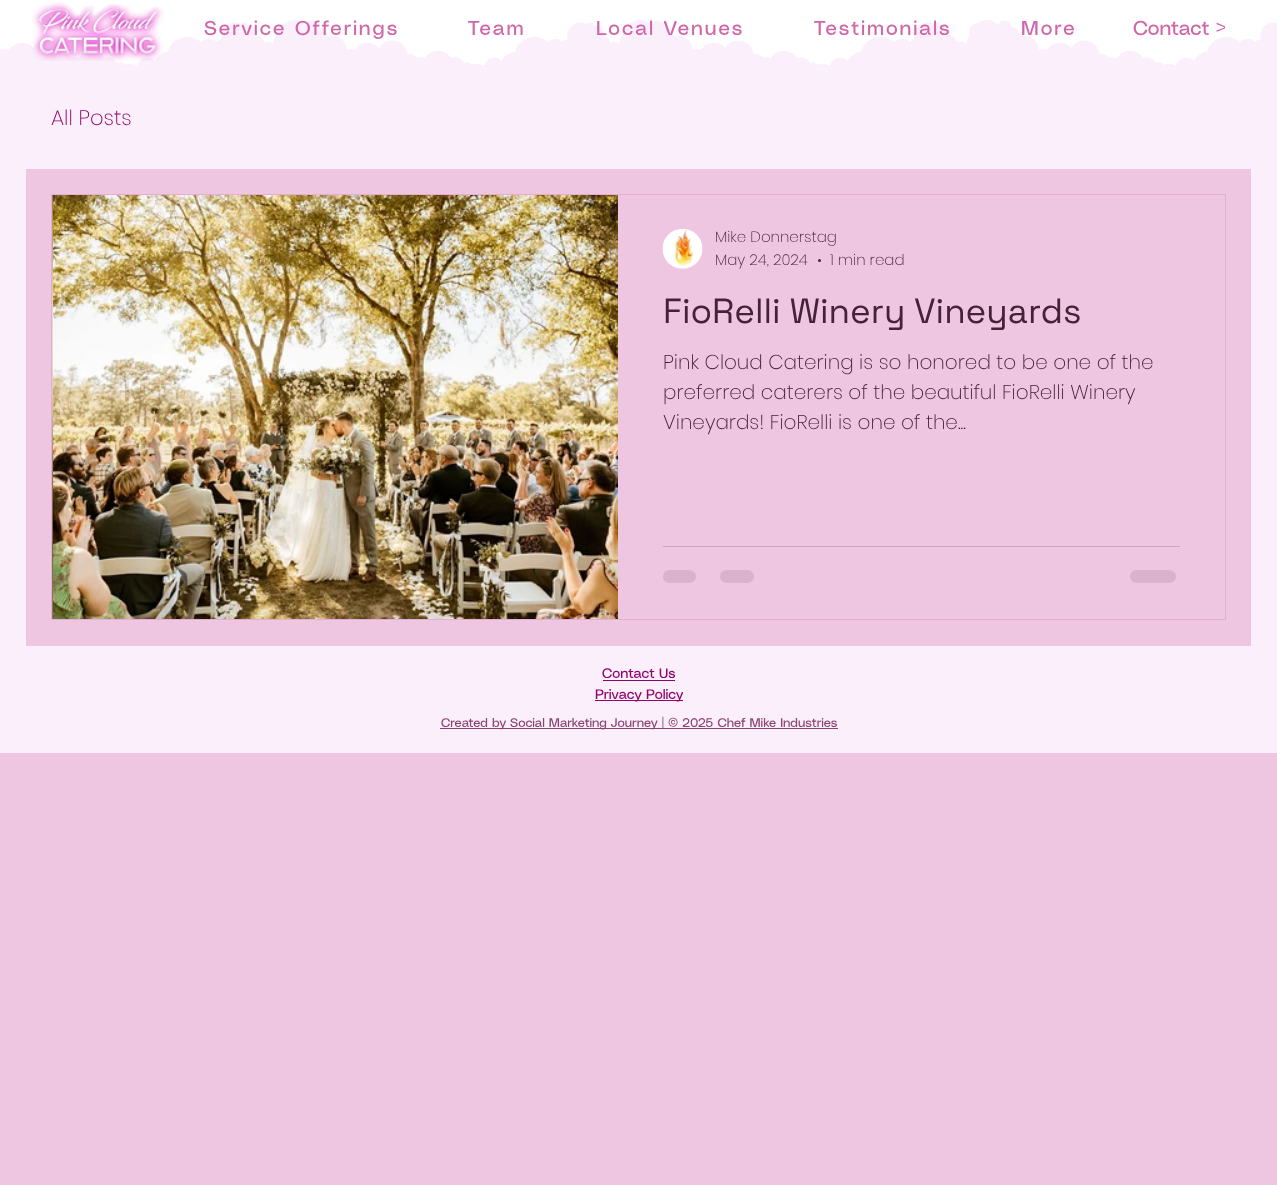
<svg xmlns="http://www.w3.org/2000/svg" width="1277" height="1185">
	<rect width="100%" height="100%" fill="#EFC6E1" />
	<rect x="0" y="0" width="1277" height="69" fill="#FFFFFF" />
	<image x="0" y="20" width="1277" height="49" href="assets/img1.png" />
	<image x="32" y="2" width="132" height="59" href="assets/img2.png" />
	<g font-family="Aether" font-size="20" letter-spacing="2" fill="#D065AA">
		<text x="204" y="35">Service Offerings</text>
		<text x="468" y="35">Team</text>
		<text x="596" y="35">Local Venues</text>
		<text x="814" y="35">Testimonials</text>
		<text x="1021" y="35">More</text>
	</g>
	<text x="1133" y="35" font-family="Aether" font-size="20" fill="#D065AA">Contact &gt;</text>
	<rect x="0" y="69" width="1277" height="684" fill="#FAEFFA" />
	<rect x="26" y="169" width="1225" height="477" fill="#EFC6E1" />
	<text x="51" y="125" font-family="Poppins" font-size="21" font-weight="200" fill="#92006B">All Posts</text>
	<rect x="51.5" y="194.5" width="1174" height="425" fill="none" stroke="#E4AED1" />
	<image x="52" y="195" width="1" height="424" href="assets/img3.png" />
	<image x="53" y="195" width="565" height="424" href="assets/img4.png" />
	<image x="662" y="229" width="41" height="40" href="assets/img5.png" />
	<g font-family="Poppins" font-size="15" font-weight="200" fill="#452239">
		<text x="715" y="242">Mike Donnerstag</text>
		<text x="715" y="265">May 24, 2024</text>
	</g>
	<circle cx="819.5" cy="260.5" r="1.5" fill="#452239" />
	<text x="830" y="265" font-family="Poppins" font-size="15" font-weight="200" fill="#452239">1 min read</text>
	<text x="663" y="323" font-family="Space Grotesk" font-size="35" fill="#452239">FioRelli Winery Vineyards</text>
	<g font-family="Poppins" font-size="20" font-weight="200" fill="#452239">
		<text x="663" y="369">Pink Cloud Catering is so honored to be one of the</text>
		<text x="663" y="399">preferred caterers of the beautiful FioRelli Winery</text>
		<text x="663" y="429">Vineyards! FioRelli is one of the...</text>
	</g>
	<rect x="663" y="546" width="517" height="1" fill="#CDA5BF" />
	<rect x="663" y="570" width="33" height="13" rx="6.5" fill="#DBB2CD" />
	<rect x="720" y="570" width="34" height="13" rx="6.5" fill="#DBB2CD" />
	<rect x="1130" y="570" width="46" height="13" rx="6.5" fill="#DBB2CD" />
	<text x="602" y="678" font-family="Aether" font-size="13.75" fill="#92006B">Contact Us</text>
	<rect x="603" y="680" width="72" height="1" fill="#92006B" />
	<rect x="595" y="700" width="88" height="1" fill="#92006B" />
	<text x="595" y="699" font-family="Aether" font-size="13.75" fill="#92006B">Privacy Policy</text>
	<rect x="440" y="728" width="398" height="1" fill="#8B4371" />
	<text x="441" y="727" font-family="Aether" font-size="12.5" fill="#8B4371">Created by Social Marketing Journey | © 2025 Chef Mike Industries</text>
</svg>
